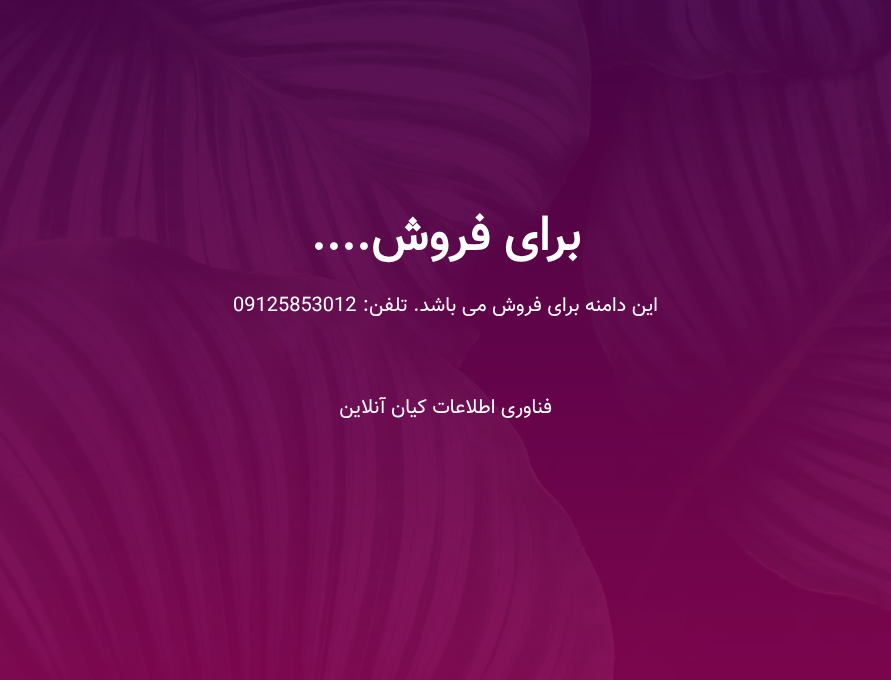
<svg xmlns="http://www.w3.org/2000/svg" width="891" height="680">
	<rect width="100%" height="100%" fill="#FFFFFF" />
	<image x="0" y="0" width="891" height="680" href="assets/img1.png" />
	<text x="581" y="250" font-family="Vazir" font-size="48" font-weight="700" direction="rtl" fill="#FFFFFF">برای فروش....</text>
	<text x="658" y="311" font-family="Vazir" font-size="20" direction="rtl" fill="#FFFFFF">این دامنه برای فروش می باشد. تلفن:</text>
	<text x="233" y="311" font-family="Vazir" font-size="20" fill="#FFFFFF">09125853012</text>
	<text x="552" y="413" font-family="Vazir" font-size="20" direction="rtl" fill="#FFFFFF">فناوری اطلاعات کیان آنلاین</text>
</svg>
